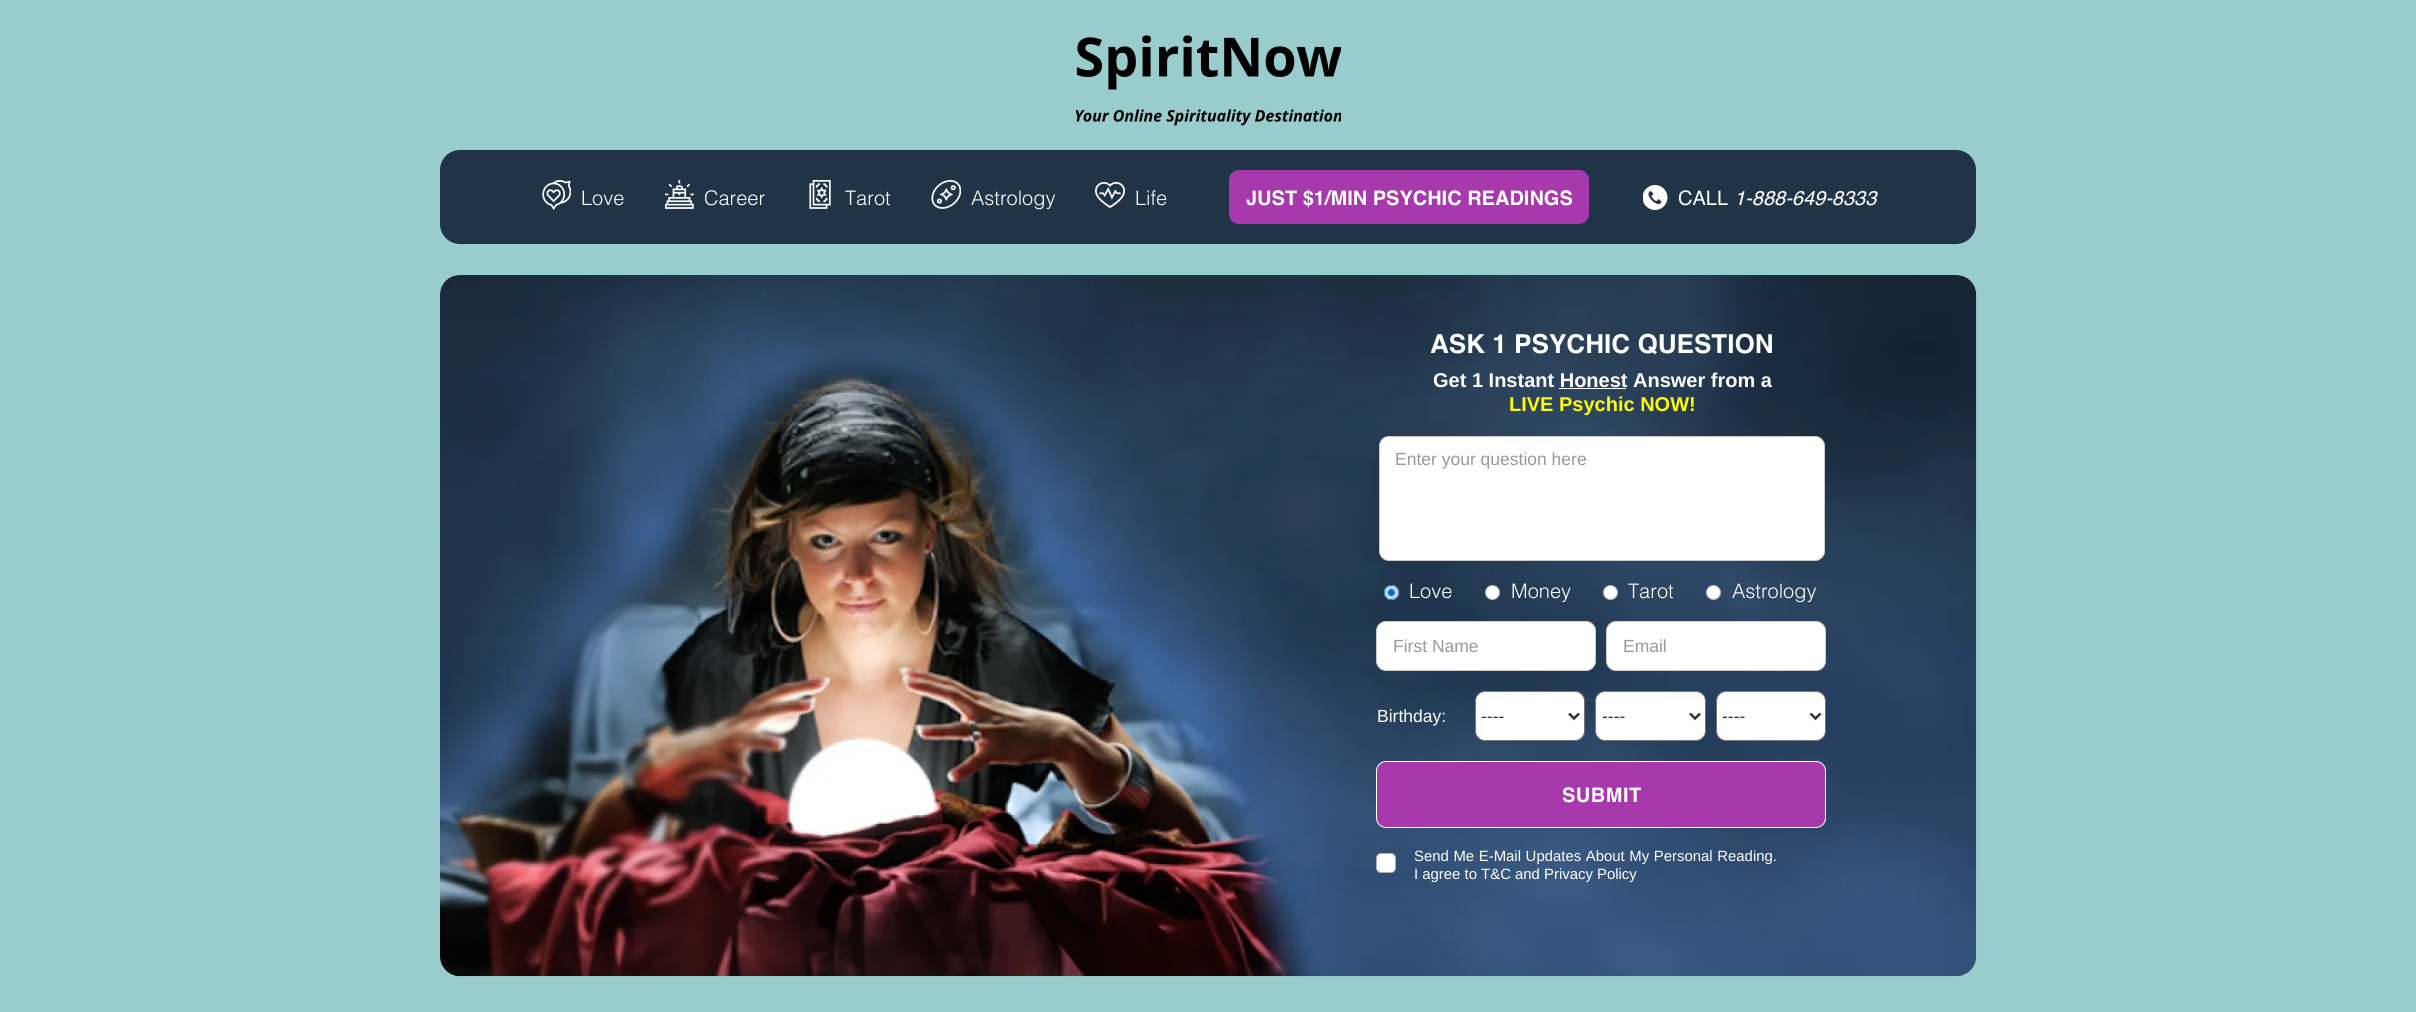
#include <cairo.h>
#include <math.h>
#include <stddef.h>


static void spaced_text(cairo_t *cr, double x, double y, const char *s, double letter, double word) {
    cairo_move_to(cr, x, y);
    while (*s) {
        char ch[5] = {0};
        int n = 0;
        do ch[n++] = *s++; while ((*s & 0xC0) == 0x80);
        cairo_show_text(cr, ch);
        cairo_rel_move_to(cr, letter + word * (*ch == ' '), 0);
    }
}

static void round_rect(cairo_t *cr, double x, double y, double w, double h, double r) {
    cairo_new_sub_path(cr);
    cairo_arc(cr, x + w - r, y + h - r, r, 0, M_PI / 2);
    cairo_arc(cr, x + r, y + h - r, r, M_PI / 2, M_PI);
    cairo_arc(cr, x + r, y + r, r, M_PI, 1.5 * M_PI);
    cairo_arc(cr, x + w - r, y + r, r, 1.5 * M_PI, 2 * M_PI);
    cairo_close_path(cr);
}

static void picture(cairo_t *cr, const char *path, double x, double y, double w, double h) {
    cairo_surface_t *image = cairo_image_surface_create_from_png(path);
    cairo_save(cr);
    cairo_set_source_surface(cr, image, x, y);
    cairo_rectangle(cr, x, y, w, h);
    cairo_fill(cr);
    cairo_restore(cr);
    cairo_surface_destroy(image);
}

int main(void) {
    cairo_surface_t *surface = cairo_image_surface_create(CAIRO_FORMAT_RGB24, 2416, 1012);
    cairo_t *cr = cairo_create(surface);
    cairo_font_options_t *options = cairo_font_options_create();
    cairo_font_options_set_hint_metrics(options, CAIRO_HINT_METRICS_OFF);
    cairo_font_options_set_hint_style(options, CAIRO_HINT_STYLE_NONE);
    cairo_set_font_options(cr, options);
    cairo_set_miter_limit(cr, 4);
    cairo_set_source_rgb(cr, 0.6, 0.8, 0.8);
    cairo_paint(cr);
    picture(cr, "img1.png", 1076, 35, 265, 91);
    cairo_set_source_rgb(cr, 0.129, 0.2, 0.278);
    round_rect(cr, 440, 150, 1536, 94, 20);
    cairo_fill(cr);
    picture(cr, "img2.png", 542, 180, 29, 30);
    cairo_select_font_face(cr, "Helvetica Light", CAIRO_FONT_SLANT_NORMAL, CAIRO_FONT_WEIGHT_NORMAL);
    cairo_set_font_size(cr, 20);
    cairo_set_source_rgb(cr, 1, 1, 1);
    cairo_move_to(cr, 581, 205);
    cairo_show_text(cr, "Love");
    picture(cr, "img3.png", 665, 180, 29, 29);
    cairo_move_to(cr, 704, 205);
    cairo_show_text(cr, "Career");
    picture(cr, "img4.png", 809, 180, 22, 29);
    cairo_move_to(cr, 845, 205);
    cairo_show_text(cr, "Tarot");
    picture(cr, "img5.png", 931, 180, 30, 29);
    cairo_move_to(cr, 971, 205);
    cairo_show_text(cr, "Astrology");
    picture(cr, "img6.png", 1095, 182, 30, 26);
    cairo_move_to(cr, 1135, 205);
    cairo_show_text(cr, "Life");
    cairo_set_source_rgb(cr, 0.655, 0.224, 0.678);
    round_rect(cr, 1229, 170, 360, 54, 10);
    cairo_fill(cr);
    cairo_select_font_face(cr, "Helvetica", CAIRO_FONT_SLANT_NORMAL, CAIRO_FONT_WEIGHT_BOLD);
    cairo_set_source_rgb(cr, 1, 1, 1);
    cairo_move_to(cr, 1246, 205);
    cairo_show_text(cr, "JUST $1/MIN PSYCHIC READINGS");
    picture(cr, "img7.png", 1643, 185, 25, 25);
    cairo_select_font_face(cr, "Helvetica", CAIRO_FONT_SLANT_NORMAL, CAIRO_FONT_WEIGHT_NORMAL);
    cairo_move_to(cr, 1678, 205);
    cairo_show_text(cr, "CALL");
    cairo_select_font_face(cr, "Helvetica", CAIRO_FONT_SLANT_ITALIC, CAIRO_FONT_WEIGHT_NORMAL);
    cairo_move_to(cr, 1734, 205);
    cairo_show_text(cr, "1-888-649-8333");
    picture(cr, "img8.png", 440, 275, 1537, 702);
    cairo_select_font_face(cr, "Helvetica", CAIRO_FONT_SLANT_NORMAL, CAIRO_FONT_WEIGHT_BOLD);
    cairo_set_font_size(cr, 26.1);
    cairo_move_to(cr, 1430, 353);
    cairo_show_text(cr, "ASK 1 PSYCHIC QUESTION");
    cairo_select_font_face(cr, "Liberation Sans", CAIRO_FONT_SLANT_NORMAL, CAIRO_FONT_WEIGHT_BOLD);
    cairo_set_font_size(cr, 20);
    cairo_move_to(cr, 1433, 387);
    cairo_show_text(cr, "Get 1 Instant Honest Answer from a");
    cairo_rectangle(cr, 1559, 388, 67, 1);
    cairo_fill(cr);
    cairo_set_source_rgb(cr, 0.988, 0.996, 0);
    cairo_move_to(cr, 1509, 411);
    cairo_show_text(cr, "LIVE Psychic NOW!");
    cairo_set_source_rgb(cr, 1, 1, 1);
    round_rect(cr, 1379.5, 436.5, 445, 124, 9.5);
    cairo_fill_preserve(cr);
    cairo_set_source_rgb(cr, 0.8, 0.8, 0.8);
    cairo_set_line_width(cr, 1);
    cairo_stroke(cr);
    cairo_select_font_face(cr, "Liberation Sans", CAIRO_FONT_SLANT_NORMAL, CAIRO_FONT_WEIGHT_NORMAL);
    cairo_set_font_size(cr, 17.5);
    cairo_set_source_rgb(cr, 0.6, 0.6, 0.6);
    cairo_move_to(cr, 1395, 465);
    cairo_show_text(cr, "Enter your question here");
    cairo_set_source_rgb(cr, 1, 1, 1);
    cairo_new_path(cr);
    cairo_arc(cr, 1391.5, 592.5, 7.5, 0, 2 * M_PI);
    cairo_fill(cr);
    picture(cr, "img9.png", 1383, 585, 16, 15);
    cairo_select_font_face(cr, "Helvetica Light", CAIRO_FONT_SLANT_NORMAL, CAIRO_FONT_WEIGHT_NORMAL);
    cairo_set_font_size(cr, 20);
    cairo_move_to(cr, 1409, 598);
    cairo_show_text(cr, "Love");
    cairo_new_path(cr);
    cairo_arc(cr, 1492.5, 592.5, 7, 0, 2 * M_PI);
    cairo_fill_preserve(cr);
    cairo_set_source_rgb(cr, 0.678, 0.69, 0.714);
    cairo_stroke(cr);
    cairo_set_source_rgb(cr, 1, 1, 1);
    cairo_move_to(cr, 1511, 598);
    cairo_show_text(cr, "Money");
    cairo_new_path(cr);
    cairo_arc(cr, 1610.5, 592.5, 7, 0, 2 * M_PI);
    cairo_fill_preserve(cr);
    cairo_set_source_rgb(cr, 0.678, 0.69, 0.714);
    cairo_stroke(cr);
    cairo_set_source_rgb(cr, 1, 1, 1);
    cairo_move_to(cr, 1628, 598);
    cairo_show_text(cr, "Tarot");
    cairo_new_path(cr);
    cairo_arc(cr, 1713.5, 592.5, 7, 0, 2 * M_PI);
    cairo_fill_preserve(cr);
    cairo_set_source_rgb(cr, 0.678, 0.69, 0.714);
    cairo_stroke(cr);
    cairo_set_source_rgb(cr, 1, 1, 1);
    cairo_move_to(cr, 1732, 598);
    cairo_show_text(cr, "Astrology");
    round_rect(cr, 1376.5, 621.5, 219, 49, 9.5);
    cairo_fill_preserve(cr);
    cairo_set_source_rgb(cr, 0.8, 0.8, 0.8);
    cairo_stroke(cr);
    cairo_select_font_face(cr, "Liberation Sans", CAIRO_FONT_SLANT_NORMAL, CAIRO_FONT_WEIGHT_NORMAL);
    cairo_set_font_size(cr, 17.5);
    cairo_set_source_rgb(cr, 0.6, 0.6, 0.6);
    cairo_move_to(cr, 1393, 652);
    cairo_show_text(cr, "First Name");
    cairo_set_source_rgb(cr, 1, 1, 1);
    round_rect(cr, 1606.5, 621.5, 219, 49, 9.5);
    cairo_fill_preserve(cr);
    cairo_set_source_rgb(cr, 0.8, 0.8, 0.8);
    cairo_stroke(cr);
    cairo_set_source_rgb(cr, 0.6, 0.6, 0.6);
    cairo_move_to(cr, 1623, 652);
    cairo_show_text(cr, "Email");
    cairo_set_source_rgb(cr, 1, 1, 1);
    cairo_move_to(cr, 1377, 722);
    cairo_show_text(cr, "Birthday:");
    round_rect(cr, 1475.5, 691.5, 109, 49, 9.5);
    cairo_fill_preserve(cr);
    cairo_set_source_rgb(cr, 0.463, 0.463, 0.463);
    cairo_stroke(cr);
    cairo_new_path(cr);
    cairo_move_to(cr, 1569, 713.5);
    cairo_line_to(cr, 1574, 718.5);
    cairo_line_to(cr, 1579, 713.5);
    cairo_set_source_rgb(cr, 0.2, 0.2, 0.2);
    cairo_set_line_width(cr, 2.5);
    cairo_stroke(cr);
    cairo_move_to(cr, 1481, 722);
    cairo_show_text(cr, "----");
    cairo_set_source_rgb(cr, 1, 1, 1);
    round_rect(cr, 1595.5, 691.5, 110, 49, 9.5);
    cairo_fill_preserve(cr);
    cairo_set_source_rgb(cr, 0.463, 0.463, 0.463);
    cairo_set_line_width(cr, 1);
    cairo_stroke(cr);
    cairo_new_path(cr);
    cairo_move_to(cr, 1690, 713.5);
    cairo_line_to(cr, 1695, 718.5);
    cairo_line_to(cr, 1700, 713.5);
    cairo_set_source_rgb(cr, 0.2, 0.2, 0.2);
    cairo_set_line_width(cr, 2.5);
    cairo_stroke(cr);
    cairo_move_to(cr, 1602, 722);
    cairo_show_text(cr, "----");
    cairo_set_source_rgb(cr, 1, 1, 1);
    round_rect(cr, 1716.5, 691.5, 109, 49, 9.5);
    cairo_fill_preserve(cr);
    cairo_set_source_rgb(cr, 0.463, 0.463, 0.463);
    cairo_set_line_width(cr, 1);
    cairo_stroke(cr);
    cairo_new_path(cr);
    cairo_move_to(cr, 1810.5, 713.5);
    cairo_line_to(cr, 1815.5, 718.5);
    cairo_line_to(cr, 1820.5, 713.5);
    cairo_set_source_rgb(cr, 0.2, 0.2, 0.2);
    cairo_set_line_width(cr, 2.5);
    cairo_stroke(cr);
    cairo_move_to(cr, 1722, 722);
    cairo_show_text(cr, "----");
    cairo_set_source_rgb(cr, 0.655, 0.224, 0.678);
    round_rect(cr, 1376.5, 761.5, 449, 66, 9.5);
    cairo_fill_preserve(cr);
    cairo_set_source_rgb(cr, 1, 1, 1);
    cairo_set_line_width(cr, 1);
    cairo_stroke(cr);
    cairo_select_font_face(cr, "Helvetica", CAIRO_FONT_SLANT_NORMAL, CAIRO_FONT_WEIGHT_BOLD);
    cairo_set_font_size(cr, 20);
    spaced_text(cr, 1562, 802, "SUBMIT", 0.5, 0);
    round_rect(cr, 1376.5, 853.5, 19, 19, 4.5);
    cairo_fill_preserve(cr);
    cairo_set_source_rgb(cr, 0.678, 0.69, 0.714);
    cairo_stroke(cr);
    cairo_select_font_face(cr, "Liberation Sans", CAIRO_FONT_SLANT_NORMAL, CAIRO_FONT_WEIGHT_NORMAL);
    cairo_set_font_size(cr, 14.9);
    cairo_set_source_rgb(cr, 1, 1, 1);
    spaced_text(cr, 1414, 861, "Send Me E-Mail Updates About My Personal Reading.", 0, 0.5);
    cairo_move_to(cr, 1414, 879);
    cairo_show_text(cr, "I agree to T&C and Privacy Policy");
    cairo_surface_write_to_png(surface, "page.png");
    cairo_font_options_destroy(options);
    cairo_destroy(cr);
    cairo_surface_destroy(surface);
    return 0;
}
